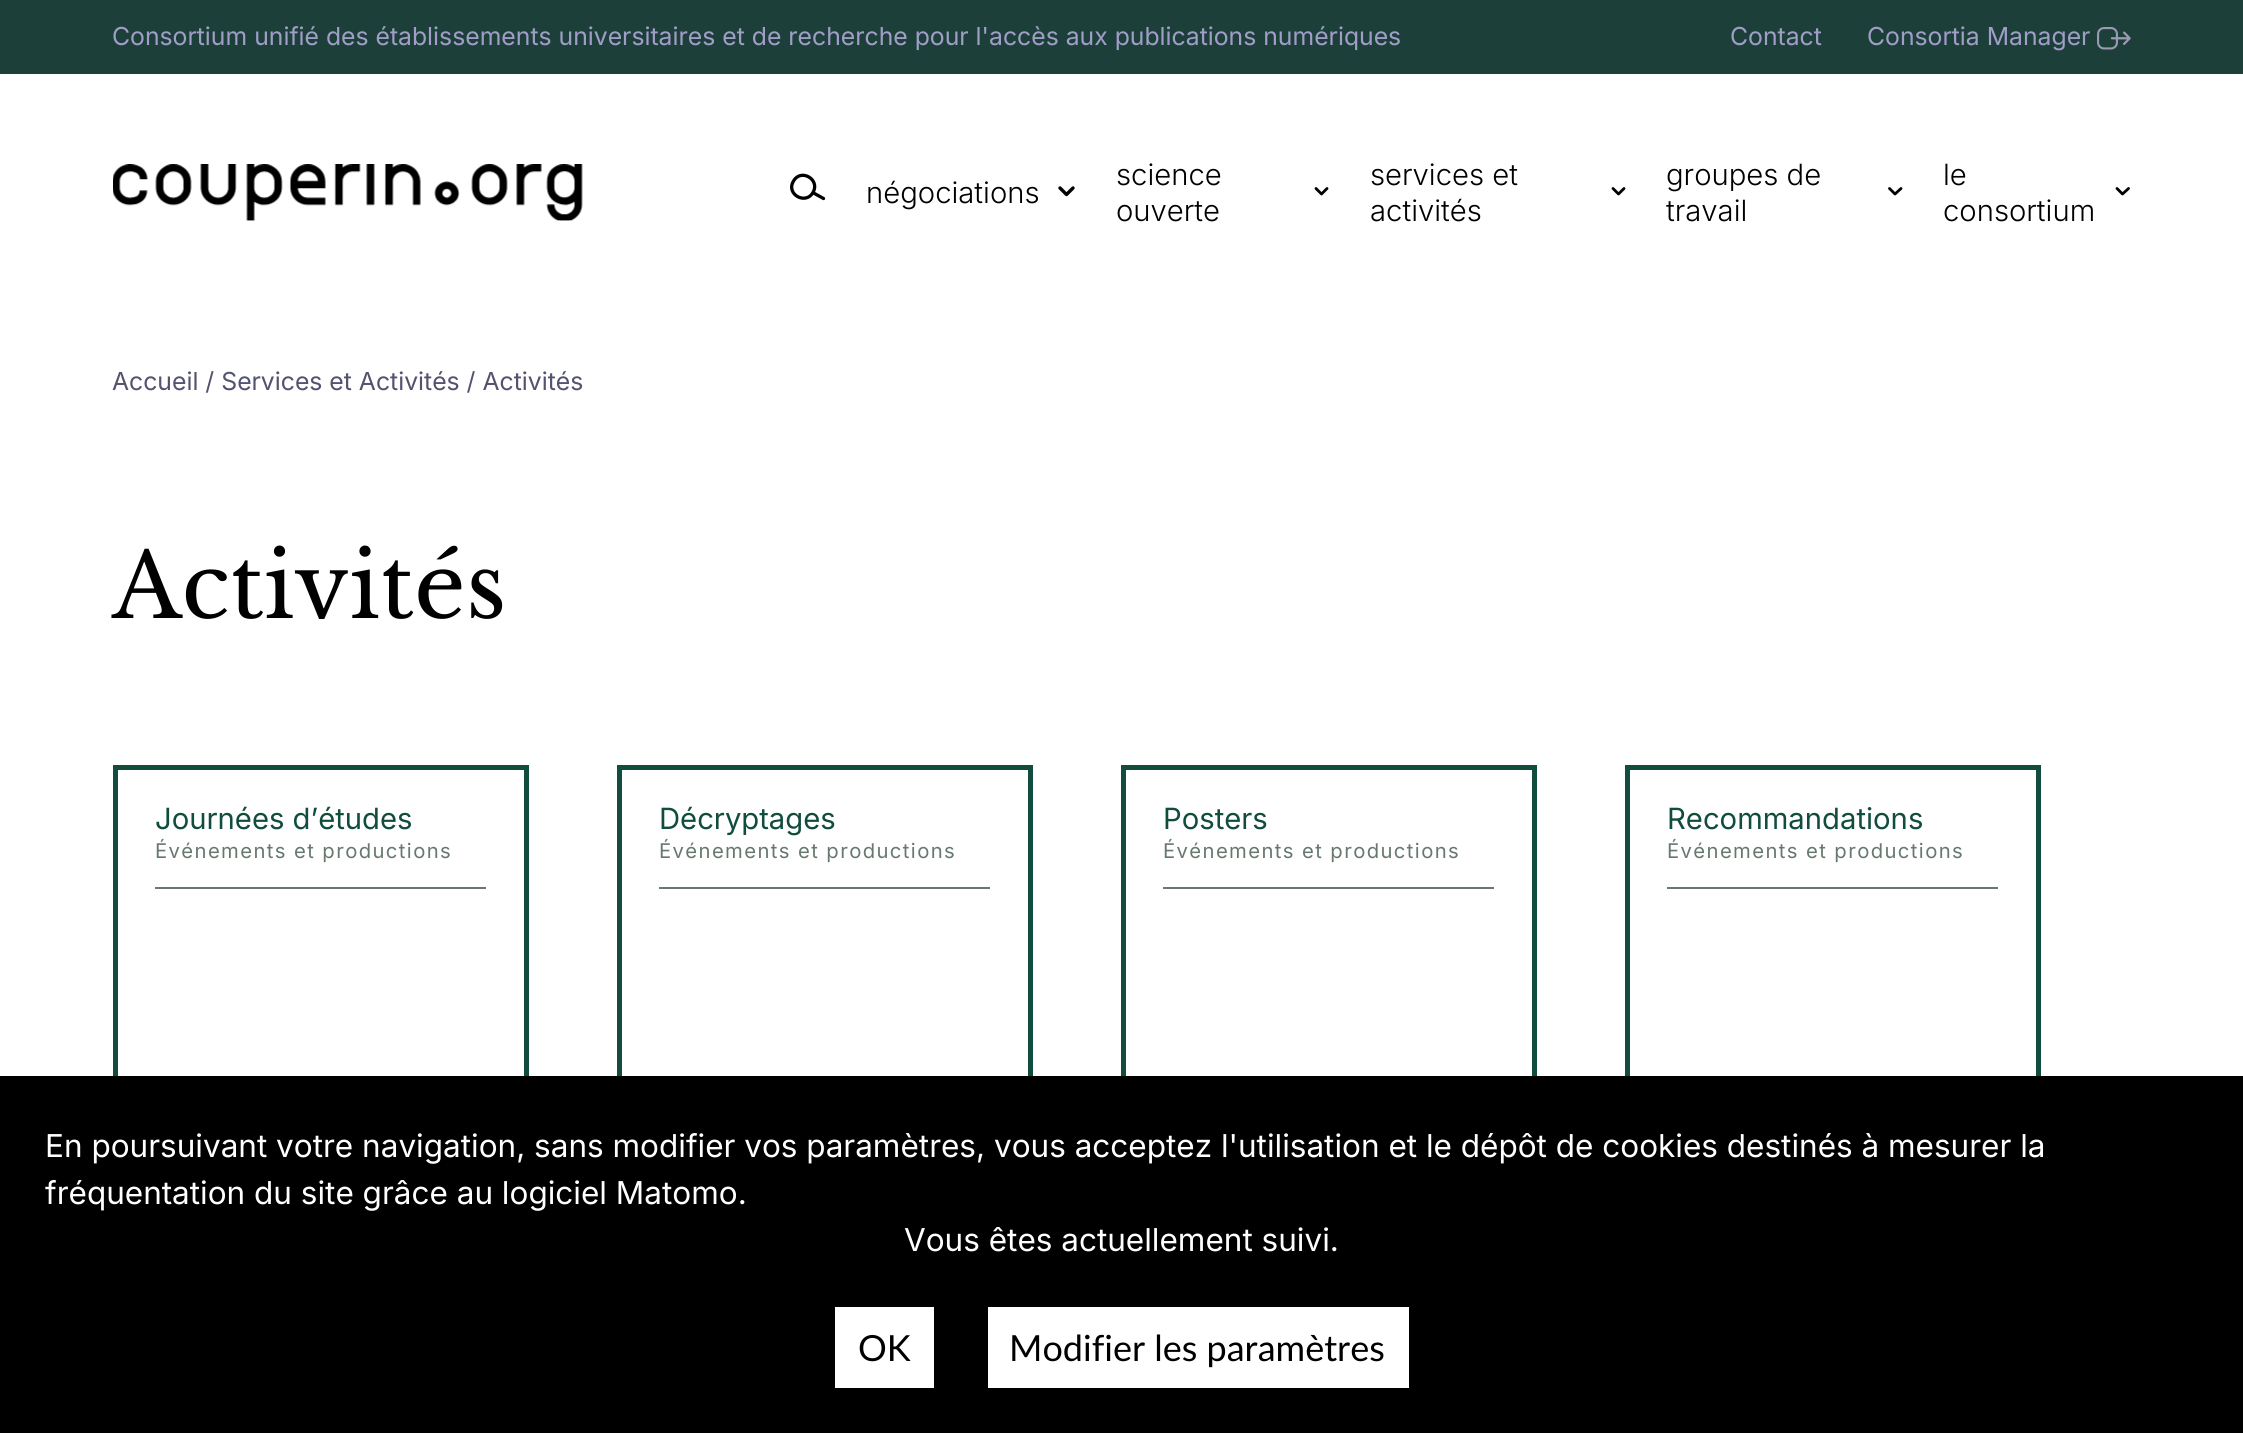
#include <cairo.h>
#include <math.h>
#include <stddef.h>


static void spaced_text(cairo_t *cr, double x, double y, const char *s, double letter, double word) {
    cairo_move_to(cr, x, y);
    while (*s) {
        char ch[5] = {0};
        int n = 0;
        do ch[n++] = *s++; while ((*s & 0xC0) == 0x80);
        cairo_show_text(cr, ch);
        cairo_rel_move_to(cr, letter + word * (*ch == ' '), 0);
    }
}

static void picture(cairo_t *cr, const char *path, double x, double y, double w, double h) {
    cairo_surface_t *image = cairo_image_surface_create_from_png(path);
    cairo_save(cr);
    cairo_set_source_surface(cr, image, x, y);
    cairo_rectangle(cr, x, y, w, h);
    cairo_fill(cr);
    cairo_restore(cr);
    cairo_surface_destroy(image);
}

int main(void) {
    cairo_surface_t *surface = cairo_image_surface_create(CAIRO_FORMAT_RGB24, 2243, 1433);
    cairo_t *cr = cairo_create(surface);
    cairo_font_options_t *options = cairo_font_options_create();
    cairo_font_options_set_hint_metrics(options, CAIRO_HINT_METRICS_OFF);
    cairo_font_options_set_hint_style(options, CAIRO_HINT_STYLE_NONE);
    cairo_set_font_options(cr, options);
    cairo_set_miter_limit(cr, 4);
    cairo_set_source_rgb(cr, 1, 1, 1);
    cairo_paint(cr);
    cairo_set_source_rgb(cr, 0.114, 0.247, 0.227);
    cairo_rectangle(cr, 0, 0, 2243, 74);
    cairo_fill(cr);
    cairo_select_font_face(cr, "Inter", CAIRO_FONT_SLANT_NORMAL, CAIRO_FONT_WEIGHT_NORMAL);
    cairo_set_font_size(cr, 24.75);
    cairo_set_source_rgb(cr, 0.627, 0.62, 0.78);
    cairo_move_to(cr, 112, 45);
    cairo_show_text(cr, "Consortium unifié des établissements universitaires et de recherche pour l'accès aux publications numériques");
    cairo_move_to(cr, 1730, 45);
    cairo_show_text(cr, "Contact");
    cairo_move_to(cr, 1867, 45);
    cairo_show_text(cr, "Consortia Manager");
    picture(cr, "img1.png", 2097, 27, 34, 23);
    picture(cr, "img2.png", 113, 164, 470, 57);
    cairo_new_path(cr);
    cairo_move_to(cr, 793.5, 181);
    cairo_curve_to(cr, 801, 168, 820.5, 179.5, 813, 192.5);
    cairo_curve_to(cr, 805.5, 205.5, 785.5, 194, 793.5, 181);
    cairo_close_path(cr);
    cairo_move_to(cr, 814.5, 193.5);
    cairo_line_to(cr, 823.5, 198.5);
    cairo_set_source_rgb(cr, 0, 0, 0);
    cairo_set_line_width(cr, 3.3);
    cairo_set_line_cap(cr, CAIRO_LINE_CAP_ROUND);
    cairo_stroke(cr);
    cairo_select_font_face(cr, "Inter Light", CAIRO_FONT_SLANT_NORMAL, CAIRO_FONT_WEIGHT_NORMAL);
    cairo_set_font_size(cr, 29.25);
    cairo_move_to(cr, 866, 203);
    cairo_show_text(cr, "négociations");
    cairo_new_path(cr);
    cairo_move_to(cr, 1060, 188);
    cairo_line_to(cr, 1066.5, 194.5);
    cairo_line_to(cr, 1073, 188);
    cairo_set_line_width(cr, 3.4);
    cairo_set_line_join(cr, CAIRO_LINE_JOIN_ROUND);
    cairo_stroke(cr);
    cairo_move_to(cr, 1116, 185);
    cairo_show_text(cr, "science");
    cairo_new_path(cr);
    cairo_move_to(cr, 1316, 188.5);
    cairo_line_to(cr, 1321.5, 194);
    cairo_line_to(cr, 1327, 188.5);
    cairo_set_line_width(cr, 2.8);
    cairo_stroke(cr);
    cairo_move_to(cr, 1116, 221);
    cairo_show_text(cr, "ouverte");
    cairo_move_to(cr, 1370, 185);
    cairo_show_text(cr, "services et");
    cairo_new_path(cr);
    cairo_move_to(cr, 1613, 188.5);
    cairo_line_to(cr, 1618.5, 194);
    cairo_line_to(cr, 1624, 188.5);
    cairo_stroke(cr);
    cairo_move_to(cr, 1370, 221);
    cairo_show_text(cr, "activités");
    cairo_move_to(cr, 1666, 185);
    cairo_show_text(cr, "groupes de");
    cairo_new_path(cr);
    cairo_move_to(cr, 1889.5, 188.5);
    cairo_line_to(cr, 1895, 194);
    cairo_line_to(cr, 1901, 188.5);
    cairo_stroke(cr);
    cairo_move_to(cr, 1666, 221);
    cairo_show_text(cr, "travail");
    cairo_move_to(cr, 1943, 185);
    cairo_show_text(cr, "le");
    cairo_new_path(cr);
    cairo_move_to(cr, 2117, 188.5);
    cairo_line_to(cr, 2122.5, 194);
    cairo_line_to(cr, 2128.5, 188.5);
    cairo_stroke(cr);
    cairo_move_to(cr, 1943, 221);
    cairo_show_text(cr, "consortium");
    cairo_select_font_face(cr, "Inter", CAIRO_FONT_SLANT_NORMAL, CAIRO_FONT_WEIGHT_NORMAL);
    cairo_set_font_size(cr, 24.75);
    cairo_set_source_rgb(cr, 0.325, 0.322, 0.435);
    cairo_move_to(cr, 112, 390);
    cairo_show_text(cr, "Accueil / Services et Activités / Activités");
    cairo_select_font_face(cr, "Libre Baskerville", CAIRO_FONT_SLANT_NORMAL, CAIRO_FONT_WEIGHT_NORMAL);
    cairo_set_font_size(cr, 90);
    cairo_set_source_rgb(cr, 0, 0, 0);
    cairo_move_to(cr, 112, 618);
    cairo_show_text(cr, "Activités");
    cairo_rectangle(cr, 115.5, 767.5, 411, 400);
    cairo_set_source_rgb(cr, 0.067, 0.302, 0.247);
    cairo_set_line_width(cr, 5);
    cairo_set_line_cap(cr, CAIRO_LINE_CAP_BUTT);
    cairo_set_line_join(cr, CAIRO_LINE_JOIN_MITER);
    cairo_stroke(cr);
    cairo_set_source_rgb(cr, 0.404, 0.475, 0.435);
    cairo_rectangle(cr, 155, 887, 331, 2);
    cairo_fill(cr);
    cairo_select_font_face(cr, "Inter", CAIRO_FONT_SLANT_NORMAL, CAIRO_FONT_WEIGHT_NORMAL);
    cairo_set_font_size(cr, 29.25);
    cairo_set_source_rgb(cr, 0.067, 0.302, 0.247);
    cairo_move_to(cr, 155, 829);
    cairo_show_text(cr, "Journées d’études");
    cairo_set_font_size(cr, 20.25);
    cairo_set_source_rgb(cr, 0.404, 0.475, 0.435);
    spaced_text(cr, 155, 858, "Événements et productions", 1.4, 0);
    cairo_rectangle(cr, 619.5, 767.5, 411, 400);
    cairo_set_source_rgb(cr, 0.067, 0.302, 0.247);
    cairo_stroke(cr);
    cairo_set_source_rgb(cr, 0.404, 0.475, 0.435);
    cairo_rectangle(cr, 659, 887, 331, 2);
    cairo_fill(cr);
    cairo_set_font_size(cr, 29.25);
    cairo_set_source_rgb(cr, 0.067, 0.302, 0.247);
    cairo_move_to(cr, 659, 829);
    cairo_show_text(cr, "Décryptages");
    cairo_set_font_size(cr, 20.25);
    cairo_set_source_rgb(cr, 0.404, 0.475, 0.435);
    spaced_text(cr, 659, 858, "Événements et productions", 1.4, 0);
    cairo_rectangle(cr, 1123.5, 767.5, 411, 400);
    cairo_set_source_rgb(cr, 0.067, 0.302, 0.247);
    cairo_stroke(cr);
    cairo_set_source_rgb(cr, 0.404, 0.475, 0.435);
    cairo_rectangle(cr, 1163, 887, 331, 2);
    cairo_fill(cr);
    cairo_set_font_size(cr, 29.25);
    cairo_set_source_rgb(cr, 0.067, 0.302, 0.247);
    cairo_move_to(cr, 1163, 829);
    cairo_show_text(cr, "Posters");
    cairo_set_font_size(cr, 20.25);
    cairo_set_source_rgb(cr, 0.404, 0.475, 0.435);
    spaced_text(cr, 1163, 858, "Événements et productions", 1.4, 0);
    cairo_rectangle(cr, 1627.5, 767.5, 411, 400);
    cairo_set_source_rgb(cr, 0.067, 0.302, 0.247);
    cairo_stroke(cr);
    cairo_set_source_rgb(cr, 0.404, 0.475, 0.435);
    cairo_rectangle(cr, 1667, 887, 331, 2);
    cairo_fill(cr);
    cairo_set_font_size(cr, 29.25);
    cairo_set_source_rgb(cr, 0.067, 0.302, 0.247);
    cairo_move_to(cr, 1667, 829);
    cairo_show_text(cr, "Recommandations");
    cairo_set_font_size(cr, 20.25);
    cairo_set_source_rgb(cr, 0.404, 0.475, 0.435);
    spaced_text(cr, 1667, 858, "Événements et productions", 1.4, 0);
    cairo_set_source_rgb(cr, 0, 0, 0);
    cairo_rectangle(cr, 0, 1076, 2243, 357);
    cairo_fill(cr);
    cairo_set_font_size(cr, 31.5);
    cairo_set_source_rgb(cr, 1, 1, 1);
    cairo_move_to(cr, 45, 1157);
    cairo_show_text(cr, "En poursuivant votre navigation, sans modifier vos paramètres, vous acceptez l'utilisation et le dépôt de cookies destinés à mesurer la");
    cairo_move_to(cr, 45, 1204);
    cairo_show_text(cr, "fréquentation du site grâce au logiciel Matomo.");
    cairo_move_to(cr, 904, 1251);
    cairo_show_text(cr, "Vous êtes actuellement suivi.");
    cairo_rectangle(cr, 835, 1307, 99, 81);
    cairo_fill(cr);
    cairo_select_font_face(cr, "Lato", CAIRO_FONT_SLANT_NORMAL, CAIRO_FONT_WEIGHT_NORMAL);
    cairo_set_font_size(cr, 36);
    cairo_set_source_rgb(cr, 0, 0, 0);
    cairo_move_to(cr, 858, 1361);
    cairo_show_text(cr, "OK");
    cairo_set_source_rgb(cr, 1, 1, 1);
    cairo_rectangle(cr, 988, 1307, 421, 81);
    cairo_fill(cr);
    cairo_set_source_rgb(cr, 0, 0, 0);
    cairo_move_to(cr, 1009, 1361);
    cairo_show_text(cr, "Modifier les paramètres");
    cairo_surface_write_to_png(surface, "page.png");
    cairo_font_options_destroy(options);
    cairo_destroy(cr);
    cairo_surface_destroy(surface);
    return 0;
}
